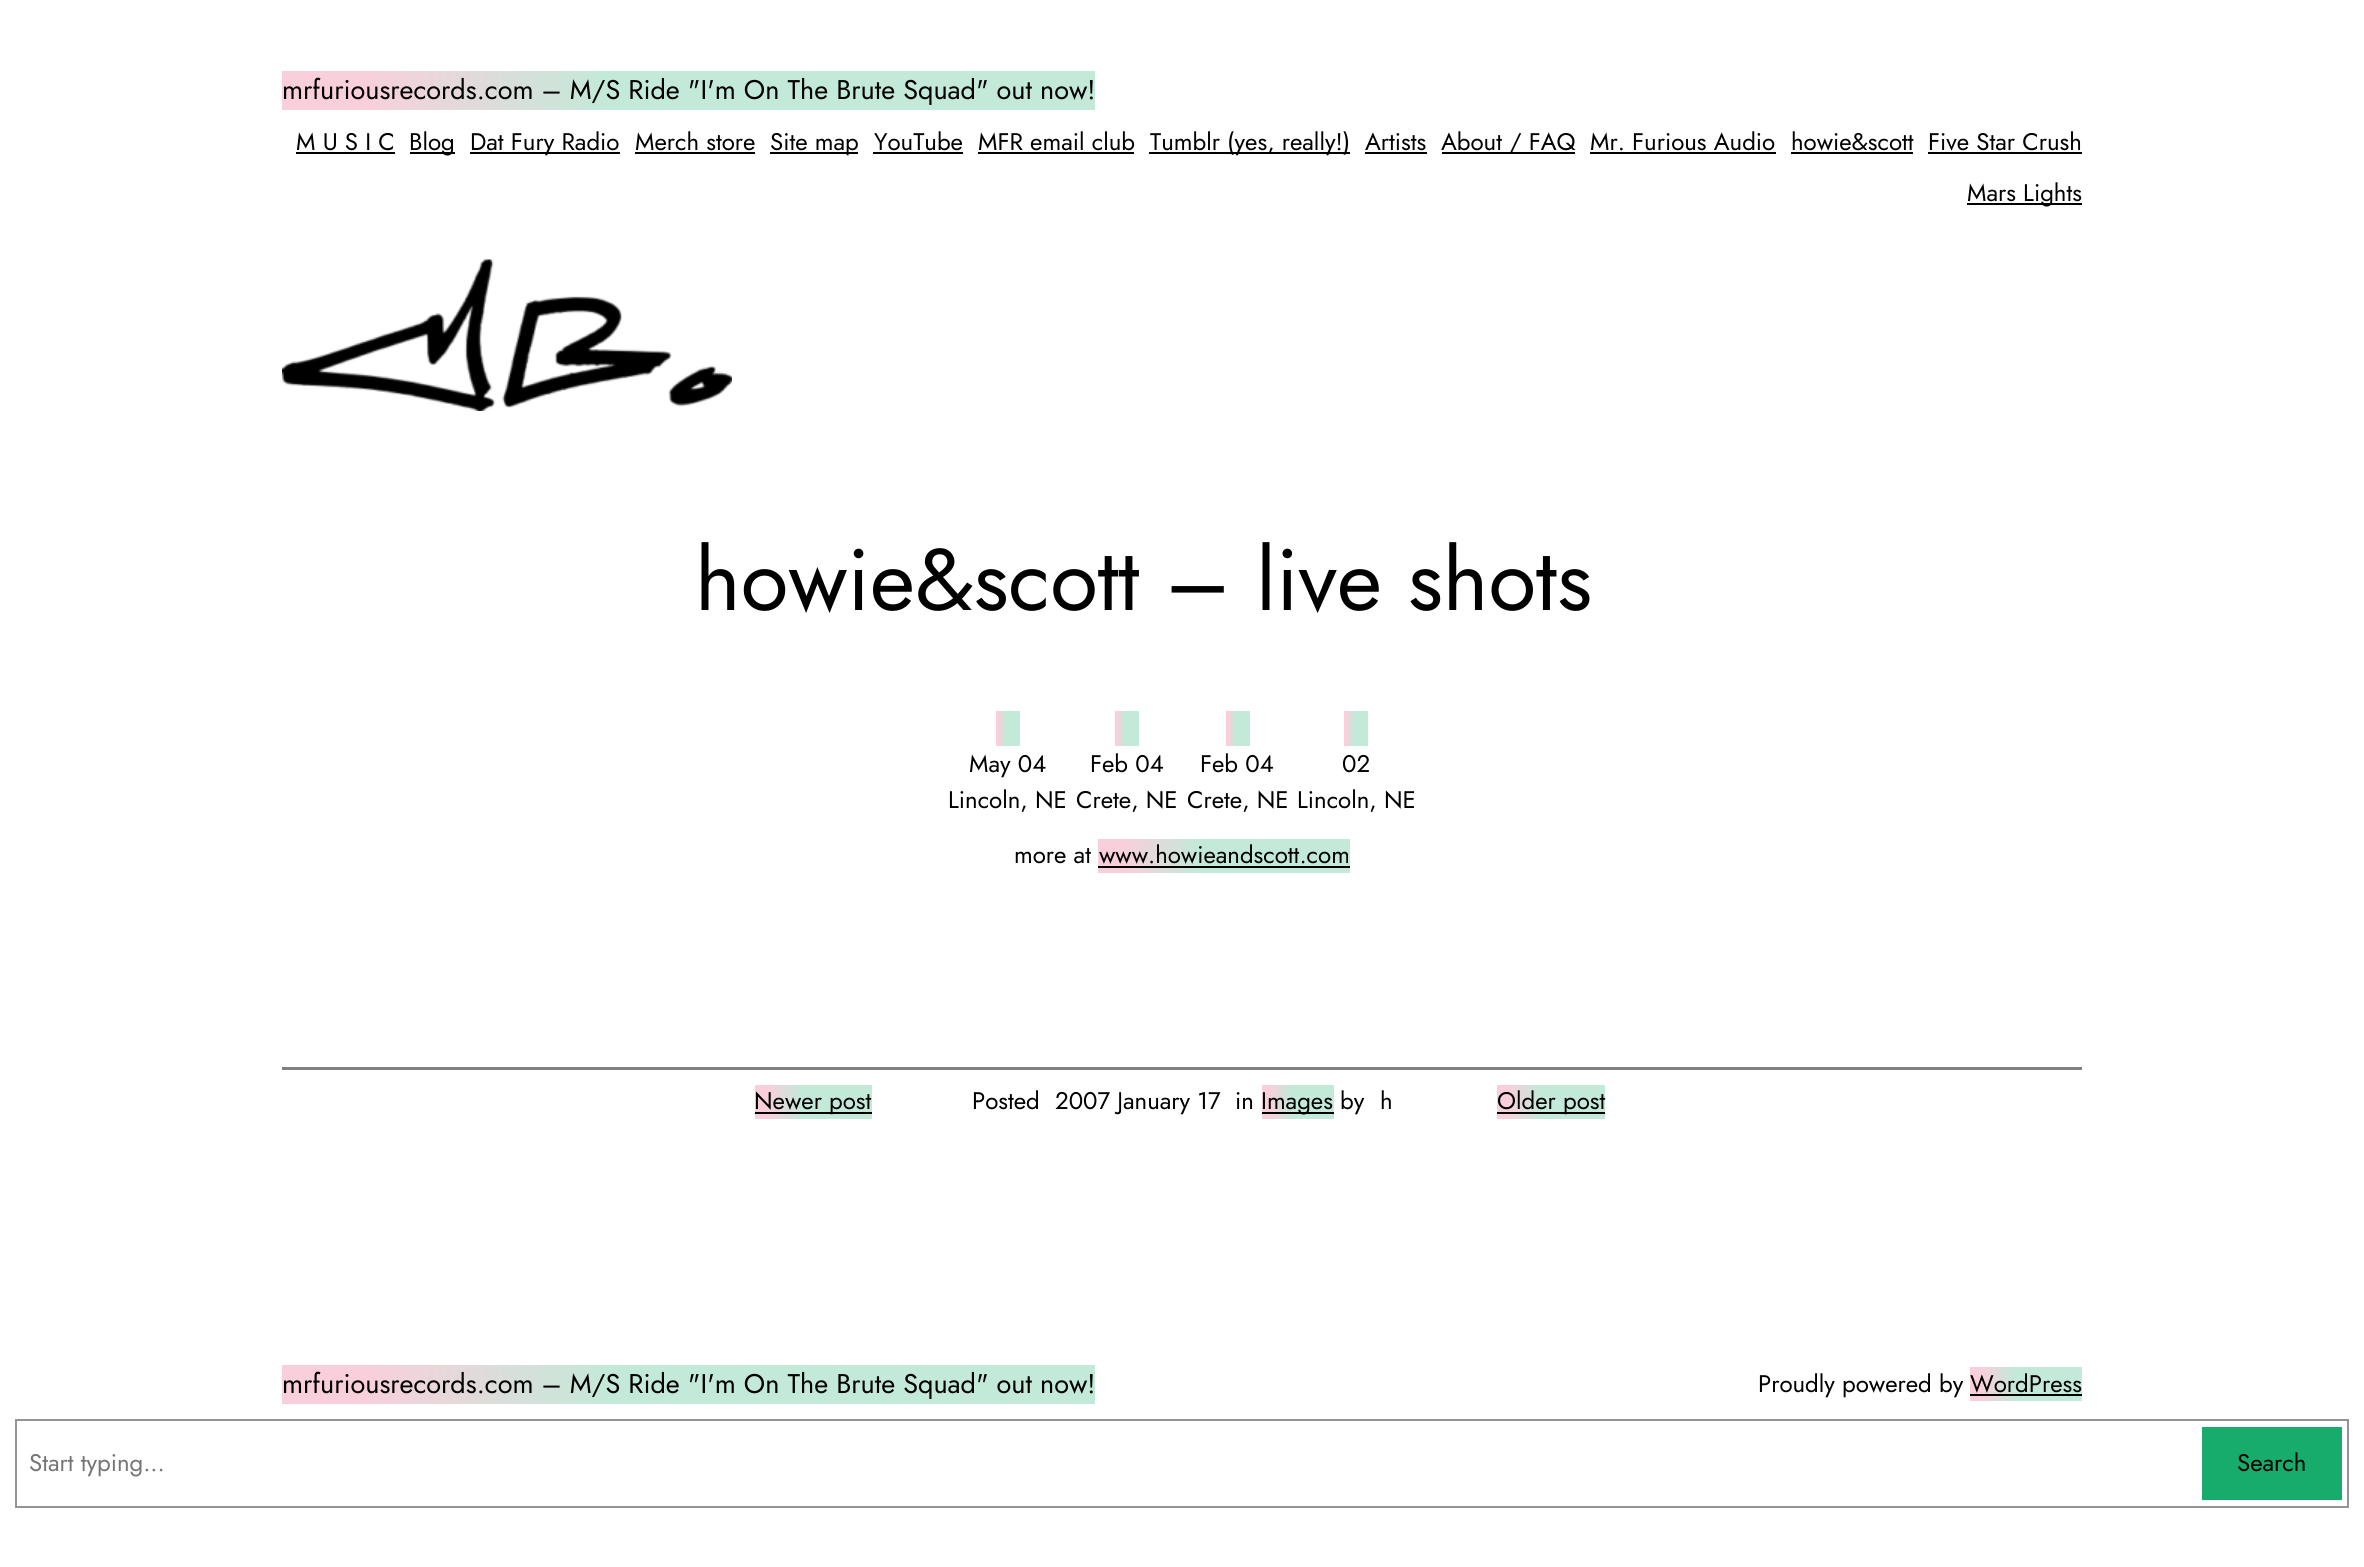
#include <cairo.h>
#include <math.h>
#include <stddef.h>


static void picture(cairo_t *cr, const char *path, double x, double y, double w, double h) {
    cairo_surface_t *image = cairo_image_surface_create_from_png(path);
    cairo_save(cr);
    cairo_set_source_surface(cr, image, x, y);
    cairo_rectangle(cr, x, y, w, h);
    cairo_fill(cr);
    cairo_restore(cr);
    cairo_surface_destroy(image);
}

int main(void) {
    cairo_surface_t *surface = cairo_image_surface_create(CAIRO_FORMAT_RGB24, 2364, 1567);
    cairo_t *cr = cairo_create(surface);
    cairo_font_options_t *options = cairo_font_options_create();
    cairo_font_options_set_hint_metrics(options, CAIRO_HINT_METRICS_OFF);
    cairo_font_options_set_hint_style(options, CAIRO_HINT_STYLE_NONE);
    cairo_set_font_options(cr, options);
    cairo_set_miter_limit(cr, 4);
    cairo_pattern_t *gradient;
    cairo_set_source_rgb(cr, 1, 1, 1);
    cairo_paint(cr);
    gradient = cairo_pattern_create_linear(282, 90, 1095, 90);
    cairo_pattern_add_color_stop_rgba(gradient, 0.1, 0.976, 0.812, 0.859, 1);
    cairo_pattern_add_color_stop_rgba(gradient, 0.4, 0.765, 0.914, 0.851, 1);
    cairo_set_source(cr, gradient);
    cairo_pattern_destroy(gradient);
    cairo_rectangle(cr, 282, 71, 813, 39);
    cairo_fill(cr);
    cairo_select_font_face(cr, "Jost", CAIRO_FONT_SLANT_NORMAL, CAIRO_FONT_WEIGHT_NORMAL);
    cairo_set_font_size(cr, 27);
    cairo_set_source_rgb(cr, 0, 0, 0);
    cairo_move_to(cr, 282, 99);
    cairo_show_text(cr, "mrfuriousrecords.com – M/S Ride \"I'm On The Brute Squad\" out now!");
    cairo_set_font_size(cr, 24);
    cairo_move_to(cr, 296, 150);
    cairo_show_text(cr, "M U S I C");
    cairo_rectangle(cr, 296, 152, 99, 2);
    cairo_fill(cr);
    cairo_rectangle(cr, 410, 152, 45, 2);
    cairo_fill(cr);
    cairo_move_to(cr, 409, 150);
    cairo_show_text(cr, "Blog");
    cairo_rectangle(cr, 470, 152, 150, 2);
    cairo_fill(cr);
    cairo_move_to(cr, 470, 150);
    cairo_show_text(cr, "Dat Fury Radio");
    cairo_move_to(cr, 635, 150);
    cairo_show_text(cr, "Merch store");
    cairo_rectangle(cr, 635, 152, 120, 2);
    cairo_fill(cr);
    cairo_rectangle(cr, 770, 152, 88, 2);
    cairo_fill(cr);
    cairo_move_to(cr, 770, 150);
    cairo_show_text(cr, "Site map");
    cairo_move_to(cr, 874, 150);
    cairo_show_text(cr, "YouTube");
    cairo_rectangle(cr, 873, 152, 90, 2);
    cairo_fill(cr);
    cairo_move_to(cr, 978, 150);
    cairo_show_text(cr, "MFR email club");
    cairo_rectangle(cr, 978, 152, 156, 2);
    cairo_fill(cr);
    cairo_rectangle(cr, 1149, 152, 201, 2);
    cairo_fill(cr);
    cairo_move_to(cr, 1150, 150);
    cairo_show_text(cr, "Tumblr (yes, really!)");
    cairo_move_to(cr, 1365, 150);
    cairo_show_text(cr, "Artists");
    cairo_rectangle(cr, 1365, 152, 62, 2);
    cairo_fill(cr);
    cairo_rectangle(cr, 1442, 152, 133, 2);
    cairo_fill(cr);
    cairo_move_to(cr, 1441, 150);
    cairo_show_text(cr, "About / FAQ");
    cairo_move_to(cr, 1590, 150);
    cairo_show_text(cr, "Mr. Furious Audio");
    cairo_rectangle(cr, 1590, 152, 186, 2);
    cairo_fill(cr);
    cairo_move_to(cr, 1791, 150);
    cairo_show_text(cr, "howie&scott");
    cairo_rectangle(cr, 1791, 152, 122, 2);
    cairo_fill(cr);
    cairo_move_to(cr, 1928, 150);
    cairo_show_text(cr, "Five Star Crush");
    cairo_rectangle(cr, 1928, 152, 154, 2);
    cairo_fill(cr);
    cairo_rectangle(cr, 1967, 203, 115, 2);
    cairo_fill(cr);
    cairo_move_to(cr, 1967, 201);
    cairo_show_text(cr, "Mars Lights");
    picture(cr, "img1.png", 282, 259, 450, 152);
    cairo_set_font_size(cr, 87);
    cairo_move_to(cr, 695, 610);
    cairo_show_text(cr, "howie&scott – live shots");
    gradient = cairo_pattern_create_linear(996, 728, 1020, 728);
    cairo_pattern_add_color_stop_rgba(gradient, 0.1, 0.976, 0.812, 0.859, 1);
    cairo_pattern_add_color_stop_rgba(gradient, 0.4, 0.765, 0.914, 0.851, 1);
    cairo_set_source(cr, gradient);
    cairo_pattern_destroy(gradient);
    cairo_rectangle(cr, 996, 711, 24, 35);
    cairo_fill(cr);
    cairo_set_font_size(cr, 24);
    cairo_set_source_rgb(cr, 0, 0, 0);
    cairo_move_to(cr, 969, 772);
    cairo_show_text(cr, "May 04");
    cairo_move_to(cr, 948, 808);
    cairo_show_text(cr, "Lincoln, NE");
    gradient = cairo_pattern_create_linear(1115, 728, 1139, 728);
    cairo_pattern_add_color_stop_rgba(gradient, 0.1, 0.976, 0.812, 0.859, 1);
    cairo_pattern_add_color_stop_rgba(gradient, 0.4, 0.765, 0.914, 0.851, 1);
    cairo_set_source(cr, gradient);
    cairo_pattern_destroy(gradient);
    cairo_rectangle(cr, 1115, 711, 24, 35);
    cairo_fill(cr);
    cairo_set_source_rgb(cr, 0, 0, 0);
    cairo_move_to(cr, 1090, 772);
    cairo_show_text(cr, "Feb 04");
    cairo_move_to(cr, 1076, 808);
    cairo_show_text(cr, "Crete, NE");
    gradient = cairo_pattern_create_linear(1226, 728, 1250, 728);
    cairo_pattern_add_color_stop_rgba(gradient, 0.1, 0.976, 0.812, 0.859, 1);
    cairo_pattern_add_color_stop_rgba(gradient, 0.4, 0.765, 0.914, 0.851, 1);
    cairo_set_source(cr, gradient);
    cairo_pattern_destroy(gradient);
    cairo_rectangle(cr, 1226, 711, 24, 35);
    cairo_fill(cr);
    cairo_set_source_rgb(cr, 0, 0, 0);
    cairo_move_to(cr, 1200, 772);
    cairo_show_text(cr, "Feb 04");
    cairo_move_to(cr, 1187, 808);
    cairo_show_text(cr, "Crete, NE");
    gradient = cairo_pattern_create_linear(1344, 728, 1368, 728);
    cairo_pattern_add_color_stop_rgba(gradient, 0.1, 0.976, 0.812, 0.859, 1);
    cairo_pattern_add_color_stop_rgba(gradient, 0.4, 0.765, 0.914, 0.851, 1);
    cairo_set_source(cr, gradient);
    cairo_pattern_destroy(gradient);
    cairo_rectangle(cr, 1344, 711, 24, 35);
    cairo_fill(cr);
    cairo_set_source_rgb(cr, 0, 0, 0);
    cairo_move_to(cr, 1342, 772);
    cairo_show_text(cr, "02");
    cairo_move_to(cr, 1297, 808);
    cairo_show_text(cr, "Lincoln, NE");
    cairo_move_to(cr, 1014, 863);
    cairo_show_text(cr, "more at");
    gradient = cairo_pattern_create_linear(1098, 856, 1350, 856);
    cairo_pattern_add_color_stop_rgba(gradient, 0.1, 0.976, 0.812, 0.859, 1);
    cairo_pattern_add_color_stop_rgba(gradient, 0.4, 0.765, 0.914, 0.851, 1);
    cairo_set_source(cr, gradient);
    cairo_pattern_destroy(gradient);
    cairo_rectangle(cr, 1098, 839, 252, 34);
    cairo_fill(cr);
    cairo_set_source_rgb(cr, 0, 0, 0);
    cairo_move_to(cr, 1099, 863);
    cairo_show_text(cr, "www.howieandscott.com");
    cairo_rectangle(cr, 1098, 866, 252, 2);
    cairo_fill(cr);
    cairo_set_source_rgb(cr, 0.502, 0.502, 0.502);
    cairo_rectangle(cr, 282, 1067, 1800, 3);
    cairo_fill(cr);
    gradient = cairo_pattern_create_linear(755, 1102, 872, 1102);
    cairo_pattern_add_color_stop_rgba(gradient, 0.1, 0.976, 0.812, 0.859, 1);
    cairo_pattern_add_color_stop_rgba(gradient, 0.4, 0.765, 0.914, 0.851, 1);
    cairo_set_source(cr, gradient);
    cairo_pattern_destroy(gradient);
    cairo_rectangle(cr, 755, 1085, 117, 34);
    cairo_fill(cr);
    cairo_set_source_rgb(cr, 0, 0, 0);
    cairo_rectangle(cr, 755, 1112, 117, 2);
    cairo_fill(cr);
    cairo_move_to(cr, 754, 1109);
    cairo_show_text(cr, "Newer post");
    cairo_move_to(cr, 972, 1109);
    cairo_show_text(cr, "Posted");
    cairo_move_to(cr, 1055, 1109);
    cairo_show_text(cr, "2007 January 17");
    cairo_move_to(cr, 1235, 1109);
    cairo_show_text(cr, "in");
    gradient = cairo_pattern_create_linear(1262, 1102, 1334, 1102);
    cairo_pattern_add_color_stop_rgba(gradient, 0.1, 0.976, 0.812, 0.859, 1);
    cairo_pattern_add_color_stop_rgba(gradient, 0.4, 0.765, 0.914, 0.851, 1);
    cairo_set_source(cr, gradient);
    cairo_pattern_destroy(gradient);
    cairo_rectangle(cr, 1262, 1085, 72, 34);
    cairo_fill(cr);
    cairo_set_source_rgb(cr, 0, 0, 0);
    cairo_rectangle(cr, 1262, 1112, 72, 2);
    cairo_fill(cr);
    cairo_move_to(cr, 1261, 1109);
    cairo_show_text(cr, "Images by");
    cairo_move_to(cr, 1380, 1109);
    cairo_show_text(cr, "h");
    gradient = cairo_pattern_create_linear(1497, 1102, 1605, 1102);
    cairo_pattern_add_color_stop_rgba(gradient, 0.1, 0.976, 0.812, 0.859, 1);
    cairo_pattern_add_color_stop_rgba(gradient, 0.4, 0.765, 0.914, 0.851, 1);
    cairo_set_source(cr, gradient);
    cairo_pattern_destroy(gradient);
    cairo_rectangle(cr, 1497, 1085, 108, 34);
    cairo_fill(cr);
    cairo_set_source_rgb(cr, 0, 0, 0);
    cairo_rectangle(cr, 1497, 1112, 108, 2);
    cairo_fill(cr);
    cairo_move_to(cr, 1497, 1109);
    cairo_show_text(cr, "Older post");
    gradient = cairo_pattern_create_linear(282, 1385, 1095, 1385);
    cairo_pattern_add_color_stop_rgba(gradient, 0.1, 0.976, 0.812, 0.859, 1);
    cairo_pattern_add_color_stop_rgba(gradient, 0.4, 0.765, 0.914, 0.851, 1);
    cairo_set_source(cr, gradient);
    cairo_pattern_destroy(gradient);
    cairo_rectangle(cr, 282, 1365, 813, 39);
    cairo_fill(cr);
    cairo_set_font_size(cr, 27);
    cairo_set_source_rgb(cr, 0, 0, 0);
    cairo_move_to(cr, 282, 1393);
    cairo_show_text(cr, "mrfuriousrecords.com – M/S Ride \"I'm On The Brute Squad\" out now!");
    cairo_set_font_size(cr, 24);
    cairo_move_to(cr, 1758, 1392);
    cairo_show_text(cr, "Proudly powered by");
    gradient = cairo_pattern_create_linear(1970, 1384, 2082, 1384);
    cairo_pattern_add_color_stop_rgba(gradient, 0.1, 0.976, 0.812, 0.859, 1);
    cairo_pattern_add_color_stop_rgba(gradient, 0.4, 0.765, 0.914, 0.851, 1);
    cairo_set_source(cr, gradient);
    cairo_pattern_destroy(gradient);
    cairo_rectangle(cr, 1970, 1367, 112, 34);
    cairo_fill(cr);
    cairo_set_source_rgb(cr, 0, 0, 0);
    cairo_move_to(cr, 1970, 1392);
    cairo_show_text(cr, "WordPress");
    cairo_rectangle(cr, 1970, 1394, 112, 2);
    cairo_fill(cr);
    cairo_rectangle(cr, 16, 1420, 2332, 87);
    cairo_set_source_rgb(cr, 0.58, 0.58, 0.58);
    cairo_stroke(cr);
    cairo_set_source_rgb(cr, 0.459, 0.459, 0.459);
    cairo_move_to(cr, 29, 1471);
    cairo_show_text(cr, "Start typing...");
    cairo_set_source_rgb(cr, 0.09, 0.675, 0.424);
    cairo_rectangle(cr, 2202, 1427, 140, 73);
    cairo_fill(cr);
    cairo_set_source_rgb(cr, 0, 0, 0);
    cairo_move_to(cr, 2237, 1471);
    cairo_show_text(cr, "Search");
    cairo_surface_write_to_png(surface, "page.png");
    cairo_font_options_destroy(options);
    cairo_destroy(cr);
    cairo_surface_destroy(surface);
    return 0;
}
